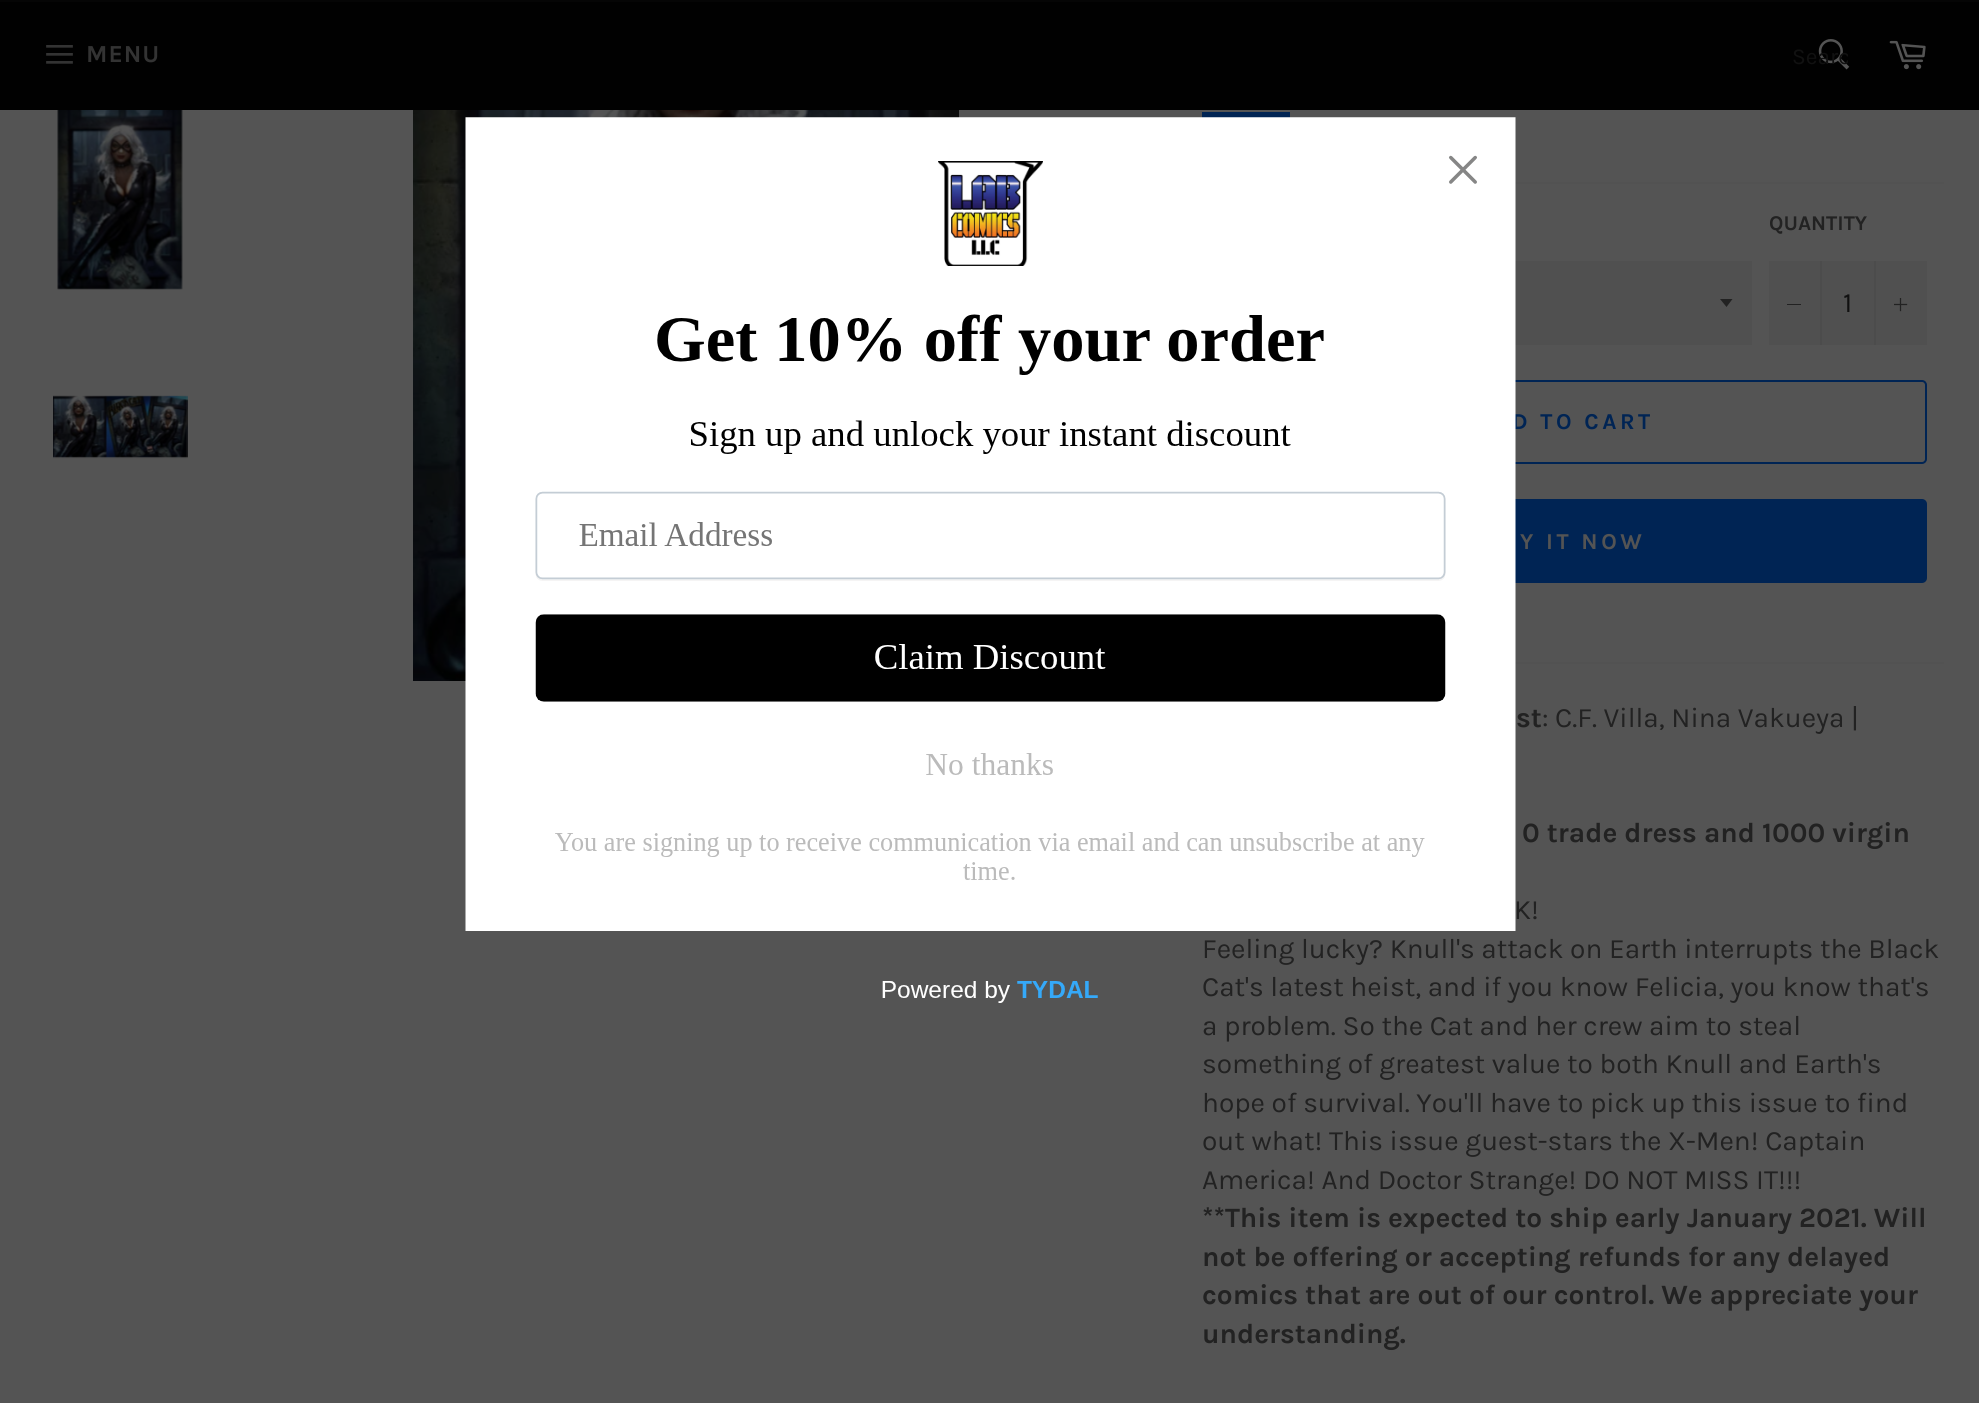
#include <cairo.h>
#include <math.h>
#include <stddef.h>


static void spaced_text(cairo_t *cr, double x, double y, const char *s, double letter, double word) {
    cairo_move_to(cr, x, y);
    while (*s) {
        char ch[5] = {0};
        int n = 0;
        do ch[n++] = *s++; while ((*s & 0xC0) == 0x80);
        cairo_show_text(cr, ch);
        cairo_rel_move_to(cr, letter + word * (*ch == ' '), 0);
    }
}

static void round_rect(cairo_t *cr, double x, double y, double w, double h, double r) {
    cairo_new_sub_path(cr);
    cairo_arc(cr, x + w - r, y + h - r, r, 0, M_PI / 2);
    cairo_arc(cr, x + r, y + h - r, r, M_PI / 2, M_PI);
    cairo_arc(cr, x + r, y + r, r, M_PI, 1.5 * M_PI);
    cairo_arc(cr, x + w - r, y + r, r, 1.5 * M_PI, 2 * M_PI);
    cairo_close_path(cr);
}

static void picture(cairo_t *cr, const char *path, double x, double y, double w, double h) {
    cairo_surface_t *image = cairo_image_surface_create_from_png(path);
    cairo_save(cr);
    cairo_set_source_surface(cr, image, x, y);
    cairo_rectangle(cr, x, y, w, h);
    cairo_fill(cr);
    cairo_restore(cr);
    cairo_surface_destroy(image);
}

int main(void) {
    cairo_surface_t *surface = cairo_image_surface_create(CAIRO_FORMAT_RGB24, 1979, 1403);
    cairo_t *cr = cairo_create(surface);
    cairo_font_options_t *options = cairo_font_options_create();
    cairo_font_options_set_hint_metrics(options, CAIRO_HINT_METRICS_OFF);
    cairo_font_options_set_hint_style(options, CAIRO_HINT_STYLE_NONE);
    cairo_set_font_options(cr, options);
    cairo_set_miter_limit(cr, 4);
    cairo_set_source_rgb(cr, 1, 1, 1);
    cairo_paint(cr);
    cairo_set_source_rgb(cr, 0.012, 0.012, 0.012);
    cairo_rectangle(cr, 0, 2, 1979, 108);
    cairo_fill(cr);
    cairo_set_source_rgb(cr, 0.063, 0.063, 0.063);
    cairo_rectangle(cr, 0, 0, 1979, 2);
    cairo_fill(cr);
    picture(cr, "img2.png", 46, 45, 27, 19);
    cairo_select_font_face(cr, "Karla", CAIRO_FONT_SLANT_NORMAL, CAIRO_FONT_WEIGHT_BOLD);
    cairo_set_font_size(cr, 24.5);
    cairo_set_source_rgb(cr, 0.604, 0.604, 0.604);
    spaced_text(cr, 86, 62, "MENU", 1, 0);
    picture(cr, "img3.png", 1818, 39, 32, 31);
    cairo_save(cr);
    cairo_rectangle(cr, 1792, 44, 56, 26);
    cairo_clip(cr);
    cairo_select_font_face(cr, "Karla", CAIRO_FONT_SLANT_NORMAL, CAIRO_FONT_WEIGHT_NORMAL);
    cairo_set_font_size(cr, 22.75);
    cairo_set_source_rgb(cr, 0.2, 0.2, 0.2);
    cairo_move_to(cr, 1792, 64);
    cairo_show_text(cr, "Searc");
    cairo_restore(cr);
    picture(cr, "img4.png", 1889, 40, 37, 30);
    picture(cr, "img5.png", 57, 110, 126, 180);
    picture(cr, "img6.png", 53, 395, 135, 64);
    picture(cr, "img7.png", 413, 110, 546, 571);
    cairo_set_source_rgb(cr, 0, 0.431, 1);
    cairo_rectangle(cr, 1202, 112, 88, 6);
    cairo_fill(cr);
    cairo_set_source_rgb(cr, 0.969, 0.969, 0.969);
    cairo_rectangle(cr, 1515, 182, 429, 2);
    cairo_fill(cr);
    cairo_set_source_rgb(cr, 0.957, 0.957, 0.957);
    cairo_rectangle(cr, 1515, 261, 237, 84);
    cairo_fill(cr);
    cairo_set_source_rgb(cr, 0.4, 0.4, 0.4);
    cairo_new_path(cr);
    cairo_move_to(cr, 1720, 299);
    cairo_line_to(cr, 1726.5, 307);
    cairo_line_to(cr, 1732.5, 299);
    cairo_close_path(cr);
    cairo_fill(cr);
    cairo_set_font_size(cr, 21);
    cairo_move_to(cr, 1769, 230);
    cairo_show_text(cr, "QUANTITY");
    cairo_set_source_rgb(cr, 0.957, 0.957, 0.957);
    cairo_rectangle(cr, 1769, 261, 158, 84);
    cairo_fill(cr);
    cairo_set_source_rgb(cr, 0.906, 0.906, 0.906);
    cairo_rectangle(cr, 1820, 261, 2, 84);
    cairo_fill(cr);
    cairo_set_source_rgb(cr, 0.4, 0.4, 0.4);
    cairo_rectangle(cr, 1787, 304, 14, 1);
    cairo_fill(cr);
    cairo_select_font_face(cr, "Karla", CAIRO_FONT_SLANT_NORMAL, CAIRO_FONT_WEIGHT_NORMAL);
    cairo_set_font_size(cr, 28);
    cairo_set_source_rgb(cr, 0.2, 0.2, 0.2);
    cairo_move_to(cr, 1843, 312);
    cairo_show_text(cr, "1");
    cairo_set_source_rgb(cr, 0.906, 0.906, 0.906);
    cairo_rectangle(cr, 1874, 261, 2, 84);
    cairo_fill(cr);
    picture(cr, "img8.png", 1894, 298, 14, 14);
    round_rect(cr, 1203, 381, 723, 82, 4);
    cairo_set_source_rgb(cr, 0, 0.431, 1);
    cairo_stroke(cr);
    cairo_select_font_face(cr, "Karla", CAIRO_FONT_SLANT_NORMAL, CAIRO_FONT_WEIGHT_BOLD);
    cairo_set_font_size(cr, 22.75);
    spaced_text(cr, 1512, 429, "D TO CART", 3.5, 0);
    round_rect(cr, 1202, 499, 725, 84, 5);
    cairo_fill(cr);
    cairo_set_source_rgb(cr, 1, 1, 1);
    spaced_text(cr, 1520, 549, "Y IT NOW", 3.5, 0);
    cairo_set_source_rgb(cr, 0.969, 0.969, 0.969);
    cairo_rectangle(cr, 1515, 662, 429, 2);
    cairo_fill(cr);
    cairo_set_font_size(cr, 28);
    cairo_set_source_rgb(cr, 0.4, 0.4, 0.4);
    cairo_move_to(cr, 1516, 727);
    cairo_show_text(cr, "st");
    cairo_select_font_face(cr, "Karla", CAIRO_FONT_SLANT_NORMAL, CAIRO_FONT_WEIGHT_NORMAL);
    cairo_move_to(cr, 1542, 727);
    cairo_show_text(cr, ": C.F. Villa, Nina Vakueya |");
    cairo_select_font_face(cr, "Karla", CAIRO_FONT_SLANT_NORMAL, CAIRO_FONT_WEIGHT_BOLD);
    cairo_move_to(cr, 1522, 842);
    cairo_show_text(cr, "0 trade dress and 1000 virgin");
    cairo_select_font_face(cr, "Karla", CAIRO_FONT_SLANT_NORMAL, CAIRO_FONT_WEIGHT_NORMAL);
    cairo_move_to(cr, 1514, 919);
    cairo_show_text(cr, "K!");
    cairo_move_to(cr, 1202, 958);
    cairo_show_text(cr, "Feeling lucky? Knull's attack on Earth interrupts the Black");
    cairo_move_to(cr, 1202, 996);
    cairo_show_text(cr, "Cat's latest heist, and if you know Felicia, you know that's");
    cairo_move_to(cr, 1202, 1035);
    cairo_show_text(cr, "a problem. So the Cat and her crew aim to steal");
    cairo_move_to(cr, 1202, 1073);
    cairo_show_text(cr, "something of greatest value to both Knull and Earth's");
    cairo_move_to(cr, 1202, 1112);
    cairo_show_text(cr, "hope of survival. You'll have to pick up this issue to find");
    cairo_move_to(cr, 1202, 1150);
    cairo_show_text(cr, "out what! This issue guest-stars the X-Men! Captain");
    cairo_move_to(cr, 1202, 1189);
    cairo_show_text(cr, "America! And Doctor Strange! DO NOT MISS IT!!!");
    cairo_select_font_face(cr, "Karla", CAIRO_FONT_SLANT_NORMAL, CAIRO_FONT_WEIGHT_BOLD);
    cairo_move_to(cr, 1202, 1227);
    cairo_show_text(cr, "**This item is expected to ship early January 2021. Will");
    cairo_move_to(cr, 1202, 1266);
    cairo_show_text(cr, "not be offering or accepting refunds for any delayed");
    cairo_move_to(cr, 1202, 1304);
    cairo_show_text(cr, "comics that are out of our control. We appreciate your");
    cairo_move_to(cr, 1202, 1343);
    cairo_show_text(cr, "understanding.");
    picture(cr, "img1.png", 0, 0, 1979, 1403);
    cairo_surface_write_to_png(surface, "page.png");
    cairo_font_options_destroy(options);
    cairo_destroy(cr);
    cairo_surface_destroy(surface);
    return 0;
}
